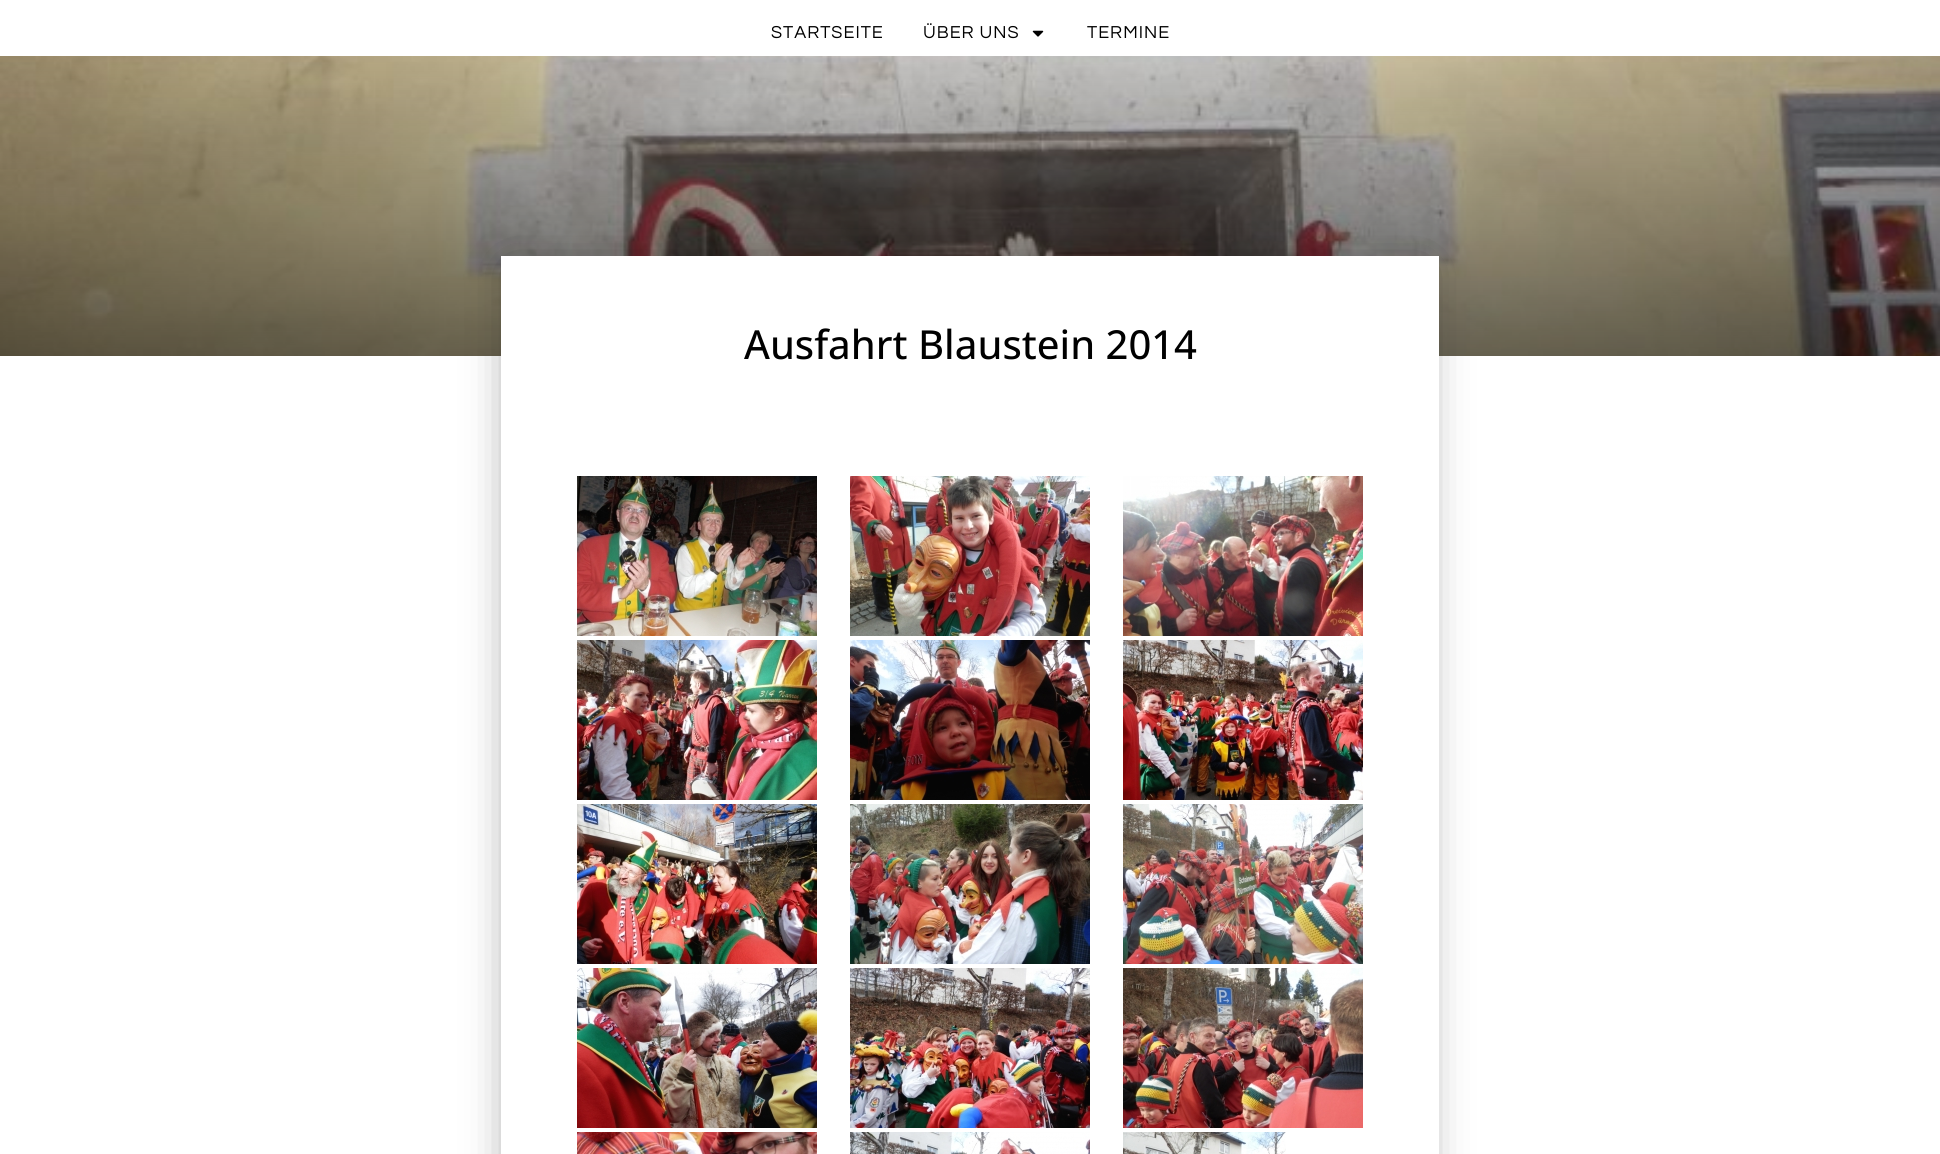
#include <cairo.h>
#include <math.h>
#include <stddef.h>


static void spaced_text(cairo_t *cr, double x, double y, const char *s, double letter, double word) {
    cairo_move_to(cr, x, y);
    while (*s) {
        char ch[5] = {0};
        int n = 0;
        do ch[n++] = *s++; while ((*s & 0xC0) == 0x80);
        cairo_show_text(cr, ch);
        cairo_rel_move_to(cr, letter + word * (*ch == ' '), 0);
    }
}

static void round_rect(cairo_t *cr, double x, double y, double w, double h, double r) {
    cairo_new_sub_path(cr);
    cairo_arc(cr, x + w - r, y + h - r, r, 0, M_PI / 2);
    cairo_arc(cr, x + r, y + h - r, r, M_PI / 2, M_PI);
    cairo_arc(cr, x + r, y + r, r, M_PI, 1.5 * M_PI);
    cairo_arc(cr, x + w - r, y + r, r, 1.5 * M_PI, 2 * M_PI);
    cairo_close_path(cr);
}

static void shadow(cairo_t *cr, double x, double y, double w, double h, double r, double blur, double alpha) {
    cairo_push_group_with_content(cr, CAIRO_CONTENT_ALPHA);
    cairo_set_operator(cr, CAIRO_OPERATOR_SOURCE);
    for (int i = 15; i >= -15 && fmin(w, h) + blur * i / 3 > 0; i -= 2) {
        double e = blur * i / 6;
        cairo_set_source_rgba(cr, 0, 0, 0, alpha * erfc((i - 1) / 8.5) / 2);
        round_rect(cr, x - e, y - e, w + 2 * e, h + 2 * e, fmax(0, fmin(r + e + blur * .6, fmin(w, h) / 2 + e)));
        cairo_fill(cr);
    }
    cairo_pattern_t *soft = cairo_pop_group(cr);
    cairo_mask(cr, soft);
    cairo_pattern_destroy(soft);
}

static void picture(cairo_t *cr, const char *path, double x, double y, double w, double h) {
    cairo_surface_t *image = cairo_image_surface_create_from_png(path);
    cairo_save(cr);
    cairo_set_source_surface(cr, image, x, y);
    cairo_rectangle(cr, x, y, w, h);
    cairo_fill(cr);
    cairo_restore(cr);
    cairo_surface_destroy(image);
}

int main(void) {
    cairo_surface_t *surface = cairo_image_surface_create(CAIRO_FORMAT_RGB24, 1940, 1154);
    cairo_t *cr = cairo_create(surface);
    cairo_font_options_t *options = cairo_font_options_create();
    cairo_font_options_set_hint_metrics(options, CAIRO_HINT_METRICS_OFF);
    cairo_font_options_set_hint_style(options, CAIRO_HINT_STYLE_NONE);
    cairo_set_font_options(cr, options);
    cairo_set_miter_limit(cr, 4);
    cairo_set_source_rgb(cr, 1, 1, 1);
    cairo_paint(cr);
    cairo_select_font_face(cr, "Questrial", CAIRO_FONT_SLANT_NORMAL, CAIRO_FONT_WEIGHT_NORMAL);
    cairo_set_font_size(cr, 18);
    cairo_set_source_rgb(cr, 0, 0, 0);
    spaced_text(cr, 771, 38, "STARTSEITE", 1, 0);
    spaced_text(cr, 923, 38, "ÜBER UNS", 1, 0);
    picture(cr, "img1.png", 1032, 30, 12, 7);
    spaced_text(cr, 1087, 38, "TERMINE", 1, 0);
    picture(cr, "img2.png", 0, 56, 1940, 300);
    cairo_set_source_rgb(cr, 0.145, 0.145, 0.145);
    shadow(cr, 509, 267, 916, 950, 0, 21, 0.45);
    cairo_set_source_rgb(cr, 1, 1, 1);
    cairo_rectangle(cr, 501, 256, 938, 898);
    cairo_fill(cr);
    cairo_select_font_face(cr, "Open Sans Medium", CAIRO_FONT_SLANT_NORMAL, CAIRO_FONT_WEIGHT_NORMAL);
    cairo_set_font_size(cr, 40);
    cairo_set_source_rgb(cr, 0, 0, 0);
    cairo_move_to(cr, 744, 359);
    cairo_show_text(cr, "Ausfahrt Blaustein 2014");
    picture(cr, "img3.png", 577, 476, 240, 160);
    picture(cr, "img4.png", 850, 476, 240, 160);
    picture(cr, "img5.png", 1123, 476, 240, 160);
    picture(cr, "img6.png", 577, 640, 240, 160);
    picture(cr, "img7.png", 850, 640, 240, 160);
    picture(cr, "img8.png", 1123, 640, 240, 160);
    picture(cr, "img9.png", 577, 804, 240, 160);
    picture(cr, "img10.png", 850, 804, 240, 160);
    picture(cr, "img11.png", 1123, 804, 240, 160);
    picture(cr, "img12.png", 577, 968, 240, 160);
    picture(cr, "img13.png", 850, 968, 240, 160);
    picture(cr, "img14.png", 1123, 968, 240, 160);
    picture(cr, "img15.png", 577, 1132, 240, 22);
    picture(cr, "img16.png", 850, 1132, 240, 22);
    picture(cr, "img17.png", 1123, 1132, 163, 22);
    cairo_surface_write_to_png(surface, "page.png");
    cairo_font_options_destroy(options);
    cairo_destroy(cr);
    cairo_surface_destroy(surface);
    return 0;
}
